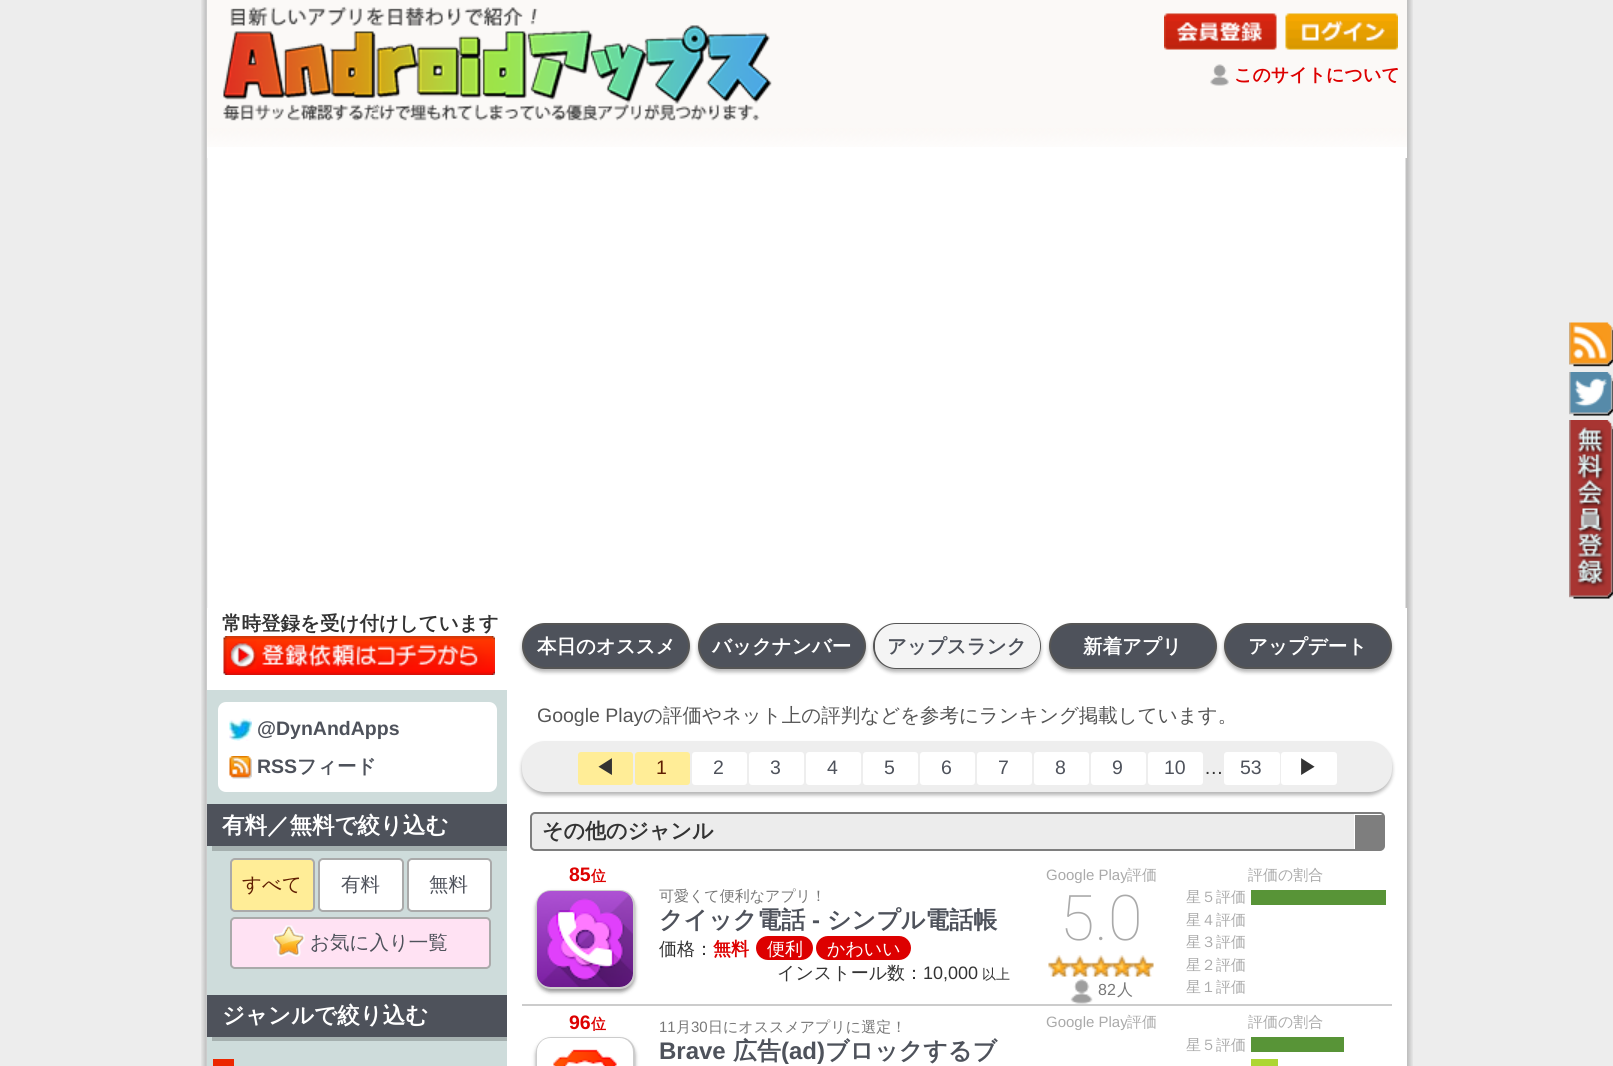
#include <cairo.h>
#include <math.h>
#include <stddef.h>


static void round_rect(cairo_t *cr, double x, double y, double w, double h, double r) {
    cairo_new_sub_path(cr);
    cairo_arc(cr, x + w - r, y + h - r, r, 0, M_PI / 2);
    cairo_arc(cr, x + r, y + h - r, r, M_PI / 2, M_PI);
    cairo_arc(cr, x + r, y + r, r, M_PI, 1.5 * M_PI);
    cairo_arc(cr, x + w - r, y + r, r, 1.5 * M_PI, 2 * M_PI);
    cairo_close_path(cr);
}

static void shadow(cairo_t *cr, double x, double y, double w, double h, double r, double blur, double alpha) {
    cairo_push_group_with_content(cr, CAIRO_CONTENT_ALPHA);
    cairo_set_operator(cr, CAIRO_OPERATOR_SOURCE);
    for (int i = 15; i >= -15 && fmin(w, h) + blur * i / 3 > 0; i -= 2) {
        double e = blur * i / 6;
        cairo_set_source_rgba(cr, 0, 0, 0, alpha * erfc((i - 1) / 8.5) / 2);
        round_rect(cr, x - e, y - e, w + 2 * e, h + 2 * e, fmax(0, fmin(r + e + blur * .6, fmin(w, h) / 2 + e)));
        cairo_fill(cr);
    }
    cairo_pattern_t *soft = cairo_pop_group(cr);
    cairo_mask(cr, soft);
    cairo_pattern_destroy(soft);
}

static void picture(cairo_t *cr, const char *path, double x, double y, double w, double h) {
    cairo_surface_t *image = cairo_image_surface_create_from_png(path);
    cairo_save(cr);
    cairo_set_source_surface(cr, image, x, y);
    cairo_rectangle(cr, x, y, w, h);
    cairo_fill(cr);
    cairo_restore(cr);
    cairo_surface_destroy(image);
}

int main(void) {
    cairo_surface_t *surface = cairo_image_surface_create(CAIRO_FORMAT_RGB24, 1613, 1066);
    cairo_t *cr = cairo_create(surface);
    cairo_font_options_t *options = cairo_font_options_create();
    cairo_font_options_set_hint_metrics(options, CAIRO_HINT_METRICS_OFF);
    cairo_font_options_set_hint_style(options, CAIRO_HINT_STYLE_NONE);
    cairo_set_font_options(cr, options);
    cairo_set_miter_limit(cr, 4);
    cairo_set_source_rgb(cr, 0.929, 0.929, 0.929);
    cairo_paint(cr);
    picture(cr, "img1.png", 201, 0, 1212, 1066);
    cairo_set_source_rgb(cr, 0.984, 0.973, 0.965);
    cairo_rectangle(cr, 207, 0, 1200, 128);
    cairo_fill(cr);
    picture(cr, "img2.png", 223, 6, 549, 115);
    picture(cr, "img3.png", 1164, 13, 113, 37);
    picture(cr, "img4.png", 1285, 13, 113, 37);
    picture(cr, "img5.png", 1210, 64, 19, 22);
    cairo_select_font_face(cr, "WenQuanYi Zen Hei", CAIRO_FONT_SLANT_NORMAL, CAIRO_FONT_WEIGHT_BOLD);
    cairo_set_font_size(cr, 18);
    cairo_set_source_rgb(cr, 0.867, 0, 0);
    cairo_move_to(cr, 1234, 81);
    cairo_show_text(cr, "このサイトについて");
    cairo_set_source_rgb(cr, 1, 1, 1);
    cairo_rectangle(cr, 207, 147, 1200, 11);
    cairo_fill(cr);
    picture(cr, "img6.png", 207, 128, 1200, 19);
    cairo_rectangle(cr, 207, 608, 1, 82);
    cairo_fill(cr);
    cairo_set_font_size(cr, 19.5);
    cairo_set_source_rgb(cr, 0.2, 0.2, 0.2);
    cairo_move_to(cr, 222, 630);
    cairo_show_text(cr, "常時登録を受け付けしています");
    picture(cr, "img7.png", 223, 636, 272, 39);
    cairo_set_source_rgb(cr, 1, 1, 1);
    cairo_rectangle(cr, 1405, 608, 2, 82);
    cairo_fill(cr);
    cairo_set_source_rgb(cr, 0, 0, 0);
    shadow(cr, 522, 626, 168, 46, 23, 2, 0.3);
    cairo_set_source_rgb(cr, 0.306, 0.322, 0.357);
    round_rect(cr, 523, 624, 166, 44, 22);
    cairo_fill_preserve(cr);
    cairo_set_source_rgb(cr, 0.333, 0.333, 0.333);
    cairo_stroke(cr);
    cairo_set_source_rgb(cr, 1, 1, 1);
    cairo_move_to(cr, 537, 653);
    cairo_show_text(cr, "本日のオススメ");
    cairo_set_source_rgb(cr, 0, 0, 0);
    shadow(cr, 698, 626, 168, 46, 23, 2, 0.3);
    cairo_set_source_rgb(cr, 0.306, 0.322, 0.357);
    round_rect(cr, 699, 624, 166, 44, 22);
    cairo_fill_preserve(cr);
    cairo_set_source_rgb(cr, 0.333, 0.333, 0.333);
    cairo_stroke(cr);
    cairo_set_source_rgb(cr, 1, 1, 1);
    cairo_move_to(cr, 712, 653);
    cairo_show_text(cr, "バックナンバー");
    cairo_set_source_rgb(cr, 0, 0, 0);
    shadow(cr, 873, 626, 168, 46, 23, 2, 0.3);
    round_rect(cr, 874, 624, 166, 44, 22);
    cairo_set_source_rgb(cr, 0.333, 0.333, 0.333);
    cairo_stroke(cr);
    cairo_set_source_rgb(cr, 0.957, 0.957, 0.957);
    round_rect(cr, 875, 624, 165, 44, 21);
    cairo_fill(cr);
    cairo_set_source_rgb(cr, 0.306, 0.322, 0.357);
    cairo_move_to(cr, 887, 653);
    cairo_show_text(cr, "アップスランク");
    cairo_set_source_rgb(cr, 0, 0, 0);
    shadow(cr, 1049, 626, 168, 46, 23, 2, 0.3);
    cairo_set_source_rgb(cr, 0.306, 0.322, 0.357);
    round_rect(cr, 1050, 624, 166, 44, 22);
    cairo_fill_preserve(cr);
    cairo_set_source_rgb(cr, 0.333, 0.333, 0.333);
    cairo_stroke(cr);
    cairo_set_source_rgb(cr, 1, 1, 1);
    cairo_move_to(cr, 1083, 653);
    cairo_show_text(cr, "新着アプリ");
    cairo_set_source_rgb(cr, 0, 0, 0);
    shadow(cr, 1224, 626, 168, 46, 23, 2, 0.3);
    cairo_set_source_rgb(cr, 0.306, 0.322, 0.357);
    round_rect(cr, 1225, 624, 166, 44, 22);
    cairo_fill_preserve(cr);
    cairo_set_source_rgb(cr, 0.333, 0.333, 0.333);
    cairo_stroke(cr);
    cairo_set_source_rgb(cr, 1, 1, 1);
    cairo_move_to(cr, 1248, 653);
    cairo_show_text(cr, "アップデート");
    cairo_set_source_rgb(cr, 0.808, 0.863, 0.859);
    cairo_rectangle(cr, 207, 690, 300, 376);
    cairo_fill(cr);
    cairo_set_source_rgb(cr, 1, 1, 1);
    round_rect(cr, 218, 702, 279, 90, 8);
    cairo_fill(cr);
    picture(cr, "img8.png", 229, 718, 23, 23);
    cairo_select_font_face(cr, "Liberation Sans", CAIRO_FONT_SLANT_NORMAL, CAIRO_FONT_WEIGHT_BOLD);
    cairo_set_source_rgb(cr, 0.306, 0.322, 0.357);
    cairo_move_to(cr, 257, 735);
    cairo_show_text(cr, "@DynAndApps");
    picture(cr, "img9.png", 229, 756, 23, 23);
    cairo_move_to(cr, 257, 773);
    cairo_show_text(cr, "RSS");
    cairo_select_font_face(cr, "WenQuanYi Zen Hei", CAIRO_FONT_SLANT_NORMAL, CAIRO_FONT_WEIGHT_BOLD);
    cairo_move_to(cr, 297, 773);
    cairo_show_text(cr, "フィード");
    cairo_set_source_rgb(cr, 0.647, 0.69, 0.686);
    cairo_new_path(cr);
    cairo_move_to(cr, 212, 846);
    cairo_line_to(cr, 212, 851);
    cairo_line_to(cr, 512, 851);
    cairo_line_to(cr, 512, 809);
    cairo_line_to(cr, 507, 809);
    cairo_line_to(cr, 507, 846);
    cairo_close_path(cr);
    cairo_fill(cr);
    cairo_set_source_rgb(cr, 0.306, 0.322, 0.357);
    cairo_rectangle(cr, 207, 804, 300, 42);
    cairo_fill(cr);
    cairo_set_font_size(cr, 22.5);
    cairo_set_source_rgb(cr, 1, 1, 1);
    cairo_move_to(cr, 222, 833);
    cairo_show_text(cr, "有料／無料で絞り込む");
    cairo_set_source_rgb(cr, 1, 0.929, 0.592);
    round_rect(cr, 231, 859, 83, 52, 4);
    cairo_fill_preserve(cr);
    cairo_set_source_rgb(cr, 0.667, 0.667, 0.667);
    cairo_stroke(cr);
    cairo_select_font_face(cr, "WenQuanYi Zen Hei Medium", CAIRO_FONT_SLANT_NORMAL, CAIRO_FONT_WEIGHT_NORMAL);
    cairo_set_font_size(cr, 19.5);
    cairo_set_source_rgb(cr, 0.373, 0.118, 0.004);
    cairo_move_to(cr, 242, 891);
    cairo_show_text(cr, "すべて");
    cairo_set_source_rgb(cr, 1, 1, 1);
    round_rect(cr, 319, 859, 84, 52, 4);
    cairo_fill_preserve(cr);
    cairo_set_source_rgb(cr, 0.667, 0.667, 0.667);
    cairo_stroke(cr);
    cairo_set_source_rgb(cr, 0.306, 0.322, 0.357);
    cairo_move_to(cr, 341, 891);
    cairo_show_text(cr, "有料");
    cairo_set_source_rgb(cr, 1, 1, 1);
    round_rect(cr, 408, 859, 83, 52, 4);
    cairo_fill_preserve(cr);
    cairo_set_source_rgb(cr, 0.667, 0.667, 0.667);
    cairo_stroke(cr);
    cairo_set_source_rgb(cr, 0.306, 0.322, 0.357);
    cairo_move_to(cr, 429, 891);
    cairo_show_text(cr, "無料");
    cairo_set_source_rgb(cr, 1, 0.886, 0.953);
    round_rect(cr, 231, 918, 259, 50, 4);
    cairo_fill_preserve(cr);
    cairo_set_source_rgb(cr, 0.667, 0.667, 0.667);
    cairo_stroke(cr);
    picture(cr, "img10.png", 273, 925, 32, 32);
    cairo_set_source_rgb(cr, 0.306, 0.322, 0.357);
    cairo_move_to(cr, 310, 949);
    cairo_show_text(cr, "お気に入り一覧");
    cairo_set_source_rgb(cr, 0.647, 0.69, 0.686);
    cairo_new_path(cr);
    cairo_move_to(cr, 212, 1036);
    cairo_line_to(cr, 212, 1041);
    cairo_line_to(cr, 512, 1041);
    cairo_line_to(cr, 512, 999);
    cairo_line_to(cr, 507, 999);
    cairo_line_to(cr, 507, 1036);
    cairo_close_path(cr);
    cairo_fill(cr);
    cairo_set_source_rgb(cr, 0.306, 0.322, 0.357);
    cairo_rectangle(cr, 207, 995, 300, 42);
    cairo_fill(cr);
    cairo_select_font_face(cr, "WenQuanYi Zen Hei", CAIRO_FONT_SLANT_NORMAL, CAIRO_FONT_WEIGHT_BOLD);
    cairo_set_font_size(cr, 22.5);
    cairo_set_source_rgb(cr, 1, 1, 1);
    cairo_move_to(cr, 222, 1023);
    cairo_show_text(cr, "ジャンルで絞り込む");
    cairo_set_source_rgb(cr, 0.925, 0.153, 0);
    cairo_new_path(cr);
    cairo_move_to(cr, 213, 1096.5);
    cairo_line_to(cr, 213, 1059);
    cairo_line_to(cr, 234, 1059);
    cairo_line_to(cr, 234, 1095);
    cairo_close_path(cr);
    cairo_fill(cr);
    cairo_set_source_rgb(cr, 1, 1, 1);
    cairo_rectangle(cr, 507, 690, 900, 376);
    cairo_fill(cr);
    cairo_select_font_face(cr, "Liberation Sans", CAIRO_FONT_SLANT_NORMAL, CAIRO_FONT_WEIGHT_NORMAL);
    cairo_set_font_size(cr, 19.5);
    cairo_set_source_rgb(cr, 0.333, 0.333, 0.333);
    cairo_move_to(cr, 537, 722);
    cairo_show_text(cr, "Google Play");
    cairo_select_font_face(cr, "WenQuanYi Zen Hei Medium", CAIRO_FONT_SLANT_NORMAL, CAIRO_FONT_WEIGHT_NORMAL);
    cairo_move_to(cr, 643, 722);
    cairo_show_text(cr, "の評価やネット上の評判などを参考にランキング掲載しています。");
    cairo_set_source_rgb(cr, 0, 0, 0);
    shadow(cr, 522, 744, 870, 51, 23, 2, 0.3);
    cairo_set_source_rgb(cr, 0.933, 0.933, 0.933);
    round_rect(cr, 522, 741, 870, 51, 23);
    cairo_fill(cr);
    cairo_set_source_rgb(cr, 1, 0.929, 0.592);
    round_rect(cr, 578, 752, 55, 33, 3);
    cairo_fill(cr);
    cairo_select_font_face(cr, "WenQuanYi Zen Hei", CAIRO_FONT_SLANT_NORMAL, CAIRO_FONT_WEIGHT_BOLD);
    cairo_set_source_rgb(cr, 0.2, 0.2, 0.2);
    cairo_move_to(cr, 595, 774);
    cairo_show_text(cr, "◀");
    cairo_set_source_rgb(cr, 1, 0.929, 0.592);
    round_rect(cr, 635, 752, 55, 33, 3);
    cairo_fill(cr);
    cairo_select_font_face(cr, "Liberation Sans", CAIRO_FONT_SLANT_NORMAL, CAIRO_FONT_WEIGHT_NORMAL);
    cairo_set_source_rgb(cr, 0.373, 0.118, 0.004);
    cairo_move_to(cr, 656, 774);
    cairo_show_text(cr, "1");
    cairo_set_source_rgb(cr, 1, 1, 1);
    round_rect(cr, 692, 752, 55, 33, 3);
    cairo_fill(cr);
    cairo_set_source_rgb(cr, 0.306, 0.322, 0.357);
    cairo_move_to(cr, 713, 774);
    cairo_show_text(cr, "2");
    cairo_set_source_rgb(cr, 1, 1, 1);
    round_rect(cr, 749, 752, 55, 33, 3);
    cairo_fill(cr);
    cairo_set_source_rgb(cr, 0.306, 0.322, 0.357);
    cairo_move_to(cr, 770, 774);
    cairo_show_text(cr, "3");
    cairo_set_source_rgb(cr, 1, 1, 1);
    round_rect(cr, 806, 752, 55, 33, 3);
    cairo_fill(cr);
    cairo_set_source_rgb(cr, 0.306, 0.322, 0.357);
    cairo_move_to(cr, 827, 774);
    cairo_show_text(cr, "4");
    cairo_set_source_rgb(cr, 1, 1, 1);
    round_rect(cr, 863, 752, 55, 33, 3);
    cairo_fill(cr);
    cairo_set_source_rgb(cr, 0.306, 0.322, 0.357);
    cairo_move_to(cr, 884, 774);
    cairo_show_text(cr, "5");
    cairo_set_source_rgb(cr, 1, 1, 1);
    round_rect(cr, 920, 752, 55, 33, 3);
    cairo_fill(cr);
    cairo_set_source_rgb(cr, 0.306, 0.322, 0.357);
    cairo_move_to(cr, 941, 774);
    cairo_show_text(cr, "6");
    cairo_set_source_rgb(cr, 1, 1, 1);
    round_rect(cr, 977, 752, 55, 33, 3);
    cairo_fill(cr);
    cairo_set_source_rgb(cr, 0.306, 0.322, 0.357);
    cairo_move_to(cr, 998, 774);
    cairo_show_text(cr, "7");
    cairo_set_source_rgb(cr, 1, 1, 1);
    round_rect(cr, 1034, 752, 55, 33, 3);
    cairo_fill(cr);
    cairo_set_source_rgb(cr, 0.306, 0.322, 0.357);
    cairo_move_to(cr, 1055, 774);
    cairo_show_text(cr, "8");
    cairo_set_source_rgb(cr, 1, 1, 1);
    round_rect(cr, 1091, 752, 55, 33, 3);
    cairo_fill(cr);
    cairo_set_source_rgb(cr, 0.306, 0.322, 0.357);
    cairo_move_to(cr, 1112, 774);
    cairo_show_text(cr, "9");
    cairo_set_source_rgb(cr, 1, 1, 1);
    round_rect(cr, 1148, 752, 55, 33, 3);
    cairo_fill(cr);
    cairo_set_source_rgb(cr, 0.306, 0.322, 0.357);
    cairo_move_to(cr, 1164, 774);
    cairo_show_text(cr, "10");
    cairo_set_source_rgb(cr, 0.2, 0.2, 0.2);
    cairo_move_to(cr, 1204, 774);
    cairo_show_text(cr, "…");
    cairo_set_source_rgb(cr, 1, 1, 1);
    round_rect(cr, 1224, 752, 56, 33, 3);
    cairo_fill(cr);
    cairo_set_source_rgb(cr, 0.306, 0.322, 0.357);
    cairo_move_to(cr, 1240, 774);
    cairo_show_text(cr, "53");
    cairo_set_source_rgb(cr, 1, 1, 1);
    round_rect(cr, 1281, 752, 56, 33, 3);
    cairo_fill(cr);
    cairo_select_font_face(cr, "WenQuanYi Zen Hei", CAIRO_FONT_SLANT_NORMAL, CAIRO_FONT_WEIGHT_BOLD);
    cairo_set_source_rgb(cr, 0.2, 0.2, 0.2);
    cairo_move_to(cr, 1298, 774);
    cairo_show_text(cr, "▶");
    cairo_set_source_rgb(cr, 0.922, 0.922, 0.922);
    cairo_new_path(cr);
    cairo_move_to(cr, 534, 813);
    cairo_line_to(cr, 1354, 813);
    cairo_line_to(cr, 1354, 849);
    cairo_line_to(cr, 534, 849);
    cairo_curve_to(cr, 532, 849, 531, 848, 531, 846);
    cairo_line_to(cr, 531, 816);
    cairo_curve_to(cr, 531, 814, 532, 813, 534, 813);
    cairo_close_path(cr);
    cairo_fill(cr);
    round_rect(cr, 531, 813, 853, 37, 4);
    cairo_set_source_rgb(cr, 0.494, 0.494, 0.494);
    cairo_stroke(cr);
    cairo_rectangle(cr, 1355, 815, 28, 34);
    cairo_fill(cr);
    cairo_set_font_size(cr, 21);
    cairo_set_source_rgb(cr, 0.2, 0.2, 0.2);
    cairo_move_to(cr, 542, 838);
    cairo_show_text(cr, "その他のジャンル");
    cairo_set_source_rgb(cr, 0.8, 0.8, 0.8);
    cairo_rectangle(cr, 522, 1004, 870, 2);
    cairo_fill(cr);
    cairo_select_font_face(cr, "Liberation Sans", CAIRO_FONT_SLANT_NORMAL, CAIRO_FONT_WEIGHT_BOLD);
    cairo_set_font_size(cr, 19.5);
    cairo_set_source_rgb(cr, 0.867, 0, 0);
    cairo_move_to(cr, 569, 881);
    cairo_show_text(cr, "85");
    cairo_select_font_face(cr, "WenQuanYi Zen Hei", CAIRO_FONT_SLANT_NORMAL, CAIRO_FONT_WEIGHT_BOLD);
    cairo_set_font_size(cr, 15);
    cairo_move_to(cr, 591, 881);
    cairo_show_text(cr, "位");
    cairo_set_source_rgb(cr, 0, 0, 0);
    shadow(cr, 536, 893, 99, 99, 15, 2, 0.4);
    cairo_set_source_rgb(cr, 1, 1, 1);
    round_rect(cr, 537, 891, 97, 97, 14);
    cairo_fill_preserve(cr);
    cairo_set_source_rgb(cr, 0.8, 0.8, 0.8);
    cairo_stroke(cr);
    picture(cr, "img11.png", 537, 891, 96, 96);
    cairo_select_font_face(cr, "Liberation Sans", CAIRO_FONT_SLANT_NORMAL, CAIRO_FONT_WEIGHT_NORMAL);
    cairo_set_source_rgb(cr, 0.667, 0.667, 0.667);
    cairo_move_to(cr, 1046, 880);
    cairo_show_text(cr, "Google Play");
    cairo_select_font_face(cr, "WenQuanYi Zen Hei Medium", CAIRO_FONT_SLANT_NORMAL, CAIRO_FONT_WEIGHT_NORMAL);
    cairo_move_to(cr, 1127, 880);
    cairo_show_text(cr, "評価");
    cairo_select_font_face(cr, "Heebo Thin", CAIRO_FONT_SLANT_NORMAL, CAIRO_FONT_WEIGHT_NORMAL);
    cairo_set_font_size(cr, 63);
    cairo_move_to(cr, 1060, 940);
    cairo_show_text(cr, "5.0");
    picture(cr, "img12.png", 1048, 955, 106, 22);
    picture(cr, "img13.png", 1070, 979, 23, 25);
    cairo_select_font_face(cr, "Liberation Sans", CAIRO_FONT_SLANT_NORMAL, CAIRO_FONT_WEIGHT_NORMAL);
    cairo_set_font_size(cr, 16);
    cairo_set_source_rgb(cr, 0.467, 0.467, 0.467);
    cairo_move_to(cr, 1098, 995);
    cairo_show_text(cr, "82");
    cairo_select_font_face(cr, "WenQuanYi Zen Hei Medium", CAIRO_FONT_SLANT_NORMAL, CAIRO_FONT_WEIGHT_NORMAL);
    cairo_move_to(cr, 1117, 995);
    cairo_show_text(cr, "人");
    cairo_set_font_size(cr, 15);
    cairo_set_source_rgb(cr, 0.667, 0.667, 0.667);
    cairo_move_to(cr, 1248, 880);
    cairo_show_text(cr, "評価の割合");
    cairo_move_to(cr, 1186, 902);
    cairo_show_text(cr, "星５評価");
    cairo_set_source_rgb(cr, 0.345, 0.58, 0.216);
    cairo_rectangle(cr, 1251, 890, 135, 15);
    cairo_fill(cr);
    cairo_set_source_rgb(cr, 0.667, 0.667, 0.667);
    cairo_move_to(cr, 1186, 925);
    cairo_show_text(cr, "星４評価");
    cairo_move_to(cr, 1186, 947);
    cairo_show_text(cr, "星３評価");
    cairo_move_to(cr, 1186, 970);
    cairo_show_text(cr, "星２評価");
    cairo_move_to(cr, 1186, 992);
    cairo_show_text(cr, "星１評価");
    cairo_set_source_rgb(cr, 0.467, 0.467, 0.467);
    cairo_move_to(cr, 659, 901);
    cairo_show_text(cr, "可愛くて便利なアプリ！");
    cairo_select_font_face(cr, "WenQuanYi Zen Hei", CAIRO_FONT_SLANT_NORMAL, CAIRO_FONT_WEIGHT_BOLD);
    cairo_set_font_size(cr, 24);
    cairo_set_source_rgb(cr, 0.306, 0.322, 0.357);
    cairo_move_to(cr, 659, 928);
    cairo_show_text(cr, "クイック電話");
    cairo_select_font_face(cr, "Liberation Sans", CAIRO_FONT_SLANT_NORMAL, CAIRO_FONT_WEIGHT_BOLD);
    cairo_move_to(cr, 812, 928);
    cairo_show_text(cr, "-");
    cairo_select_font_face(cr, "WenQuanYi Zen Hei", CAIRO_FONT_SLANT_NORMAL, CAIRO_FONT_WEIGHT_BOLD);
    cairo_move_to(cr, 827, 928);
    cairo_show_text(cr, "シンプル電話帳");
    cairo_select_font_face(cr, "WenQuanYi Zen Hei Medium", CAIRO_FONT_SLANT_NORMAL, CAIRO_FONT_WEIGHT_NORMAL);
    cairo_set_font_size(cr, 18);
    cairo_set_source_rgb(cr, 0.2, 0.2, 0.2);
    cairo_move_to(cr, 659, 955);
    cairo_show_text(cr, "価格：");
    cairo_select_font_face(cr, "WenQuanYi Zen Hei", CAIRO_FONT_SLANT_NORMAL, CAIRO_FONT_WEIGHT_BOLD);
    cairo_set_source_rgb(cr, 0.867, 0, 0);
    cairo_move_to(cr, 713, 955);
    cairo_show_text(cr, "無料");
    round_rect(cr, 756, 936, 57, 24, 12);
    cairo_fill(cr);
    cairo_select_font_face(cr, "WenQuanYi Zen Hei Medium", CAIRO_FONT_SLANT_NORMAL, CAIRO_FONT_WEIGHT_NORMAL);
    cairo_set_source_rgb(cr, 1, 1, 1);
    cairo_move_to(cr, 767, 955);
    cairo_show_text(cr, "便利");
    cairo_set_source_rgb(cr, 0.867, 0, 0);
    round_rect(cr, 816, 936, 95, 24, 12);
    cairo_fill(cr);
    cairo_set_source_rgb(cr, 1, 1, 1);
    cairo_move_to(cr, 827, 955);
    cairo_show_text(cr, "かわいい");
    cairo_set_source_rgb(cr, 0.2, 0.2, 0.2);
    cairo_move_to(cr, 777, 979);
    cairo_show_text(cr, "インストール数：");
    cairo_select_font_face(cr, "Liberation Sans", CAIRO_FONT_SLANT_NORMAL, CAIRO_FONT_WEIGHT_NORMAL);
    cairo_move_to(cr, 923, 979);
    cairo_show_text(cr, "10,000");
    cairo_select_font_face(cr, "WenQuanYi Zen Hei Medium", CAIRO_FONT_SLANT_NORMAL, CAIRO_FONT_WEIGHT_NORMAL);
    cairo_set_font_size(cr, 14);
    cairo_move_to(cr, 982, 979);
    cairo_show_text(cr, "以上");
    cairo_select_font_face(cr, "Liberation Sans", CAIRO_FONT_SLANT_NORMAL, CAIRO_FONT_WEIGHT_BOLD);
    cairo_set_font_size(cr, 19.5);
    cairo_set_source_rgb(cr, 0.867, 0, 0);
    cairo_move_to(cr, 569, 1029);
    cairo_show_text(cr, "96");
    cairo_select_font_face(cr, "WenQuanYi Zen Hei", CAIRO_FONT_SLANT_NORMAL, CAIRO_FONT_WEIGHT_BOLD);
    cairo_set_font_size(cr, 15);
    cairo_move_to(cr, 591, 1029);
    cairo_show_text(cr, "位");
    cairo_set_source_rgb(cr, 0, 0, 0);
    shadow(cr, 536, 1040, 99, 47, 15, 2, 0.4);
    round_rect(cr, 537, 1038, 97, 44, 14);
    cairo_set_source_rgb(cr, 0.8, 0.8, 0.8);
    cairo_stroke(cr);
    picture(cr, "img14.png", 537, 1038, 96, 28);
    cairo_select_font_face(cr, "Liberation Sans", CAIRO_FONT_SLANT_NORMAL, CAIRO_FONT_WEIGHT_NORMAL);
    cairo_set_source_rgb(cr, 0.667, 0.667, 0.667);
    cairo_move_to(cr, 1046, 1027);
    cairo_show_text(cr, "Google Play");
    cairo_select_font_face(cr, "WenQuanYi Zen Hei Medium", CAIRO_FONT_SLANT_NORMAL, CAIRO_FONT_WEIGHT_NORMAL);
    cairo_move_to(cr, 1127, 1027);
    cairo_show_text(cr, "評価");
    cairo_move_to(cr, 1248, 1027);
    cairo_show_text(cr, "評価の割合");
    cairo_move_to(cr, 1186, 1050);
    cairo_show_text(cr, "星５評価");
    cairo_set_source_rgb(cr, 0.345, 0.58, 0.216);
    cairo_rectangle(cr, 1251, 1037, 93, 15);
    cairo_fill(cr);
    cairo_set_source_rgb(cr, 0.678, 0.839, 0.2);
    cairo_rectangle(cr, 1251, 1059, 27, 7);
    cairo_fill(cr);
    cairo_select_font_face(cr, "Liberation Sans", CAIRO_FONT_SLANT_NORMAL, CAIRO_FONT_WEIGHT_NORMAL);
    cairo_set_source_rgb(cr, 0.467, 0.467, 0.467);
    cairo_move_to(cr, 659, 1032);
    cairo_show_text(cr, "11");
    cairo_select_font_face(cr, "WenQuanYi Zen Hei Medium", CAIRO_FONT_SLANT_NORMAL, CAIRO_FONT_WEIGHT_NORMAL);
    cairo_move_to(cr, 676, 1032);
    cairo_show_text(cr, "月");
    cairo_select_font_face(cr, "Liberation Sans", CAIRO_FONT_SLANT_NORMAL, CAIRO_FONT_WEIGHT_NORMAL);
    cairo_move_to(cr, 691, 1032);
    cairo_show_text(cr, "30");
    cairo_select_font_face(cr, "WenQuanYi Zen Hei Medium", CAIRO_FONT_SLANT_NORMAL, CAIRO_FONT_WEIGHT_NORMAL);
    cairo_move_to(cr, 708, 1032);
    cairo_show_text(cr, "日にオススメアプリに選定！");
    cairo_select_font_face(cr, "Liberation Sans", CAIRO_FONT_SLANT_NORMAL, CAIRO_FONT_WEIGHT_BOLD);
    cairo_set_font_size(cr, 24);
    cairo_set_source_rgb(cr, 0.306, 0.322, 0.357);
    cairo_move_to(cr, 659, 1059);
    cairo_show_text(cr, "Brave");
    cairo_select_font_face(cr, "WenQuanYi Zen Hei", CAIRO_FONT_SLANT_NORMAL, CAIRO_FONT_WEIGHT_BOLD);
    cairo_move_to(cr, 733, 1059);
    cairo_show_text(cr, "広告");
    cairo_select_font_face(cr, "Liberation Sans", CAIRO_FONT_SLANT_NORMAL, CAIRO_FONT_WEIGHT_BOLD);
    cairo_move_to(cr, 781, 1059);
    cairo_show_text(cr, "(ad)");
    cairo_select_font_face(cr, "WenQuanYi Zen Hei", CAIRO_FONT_SLANT_NORMAL, CAIRO_FONT_WEIGHT_BOLD);
    cairo_move_to(cr, 825, 1059);
    cairo_show_text(cr, "ブロックするブ");
    picture(cr, "img15.png", 1569, 322, 44, 45);
    picture(cr, "img16.png", 1569, 372, 44, 44);
    picture(cr, "img17.png", 1569, 420, 44, 179);
    cairo_surface_write_to_png(surface, "page.png");
    cairo_font_options_destroy(options);
    cairo_destroy(cr);
    cairo_surface_destroy(surface);
    return 0;
}
